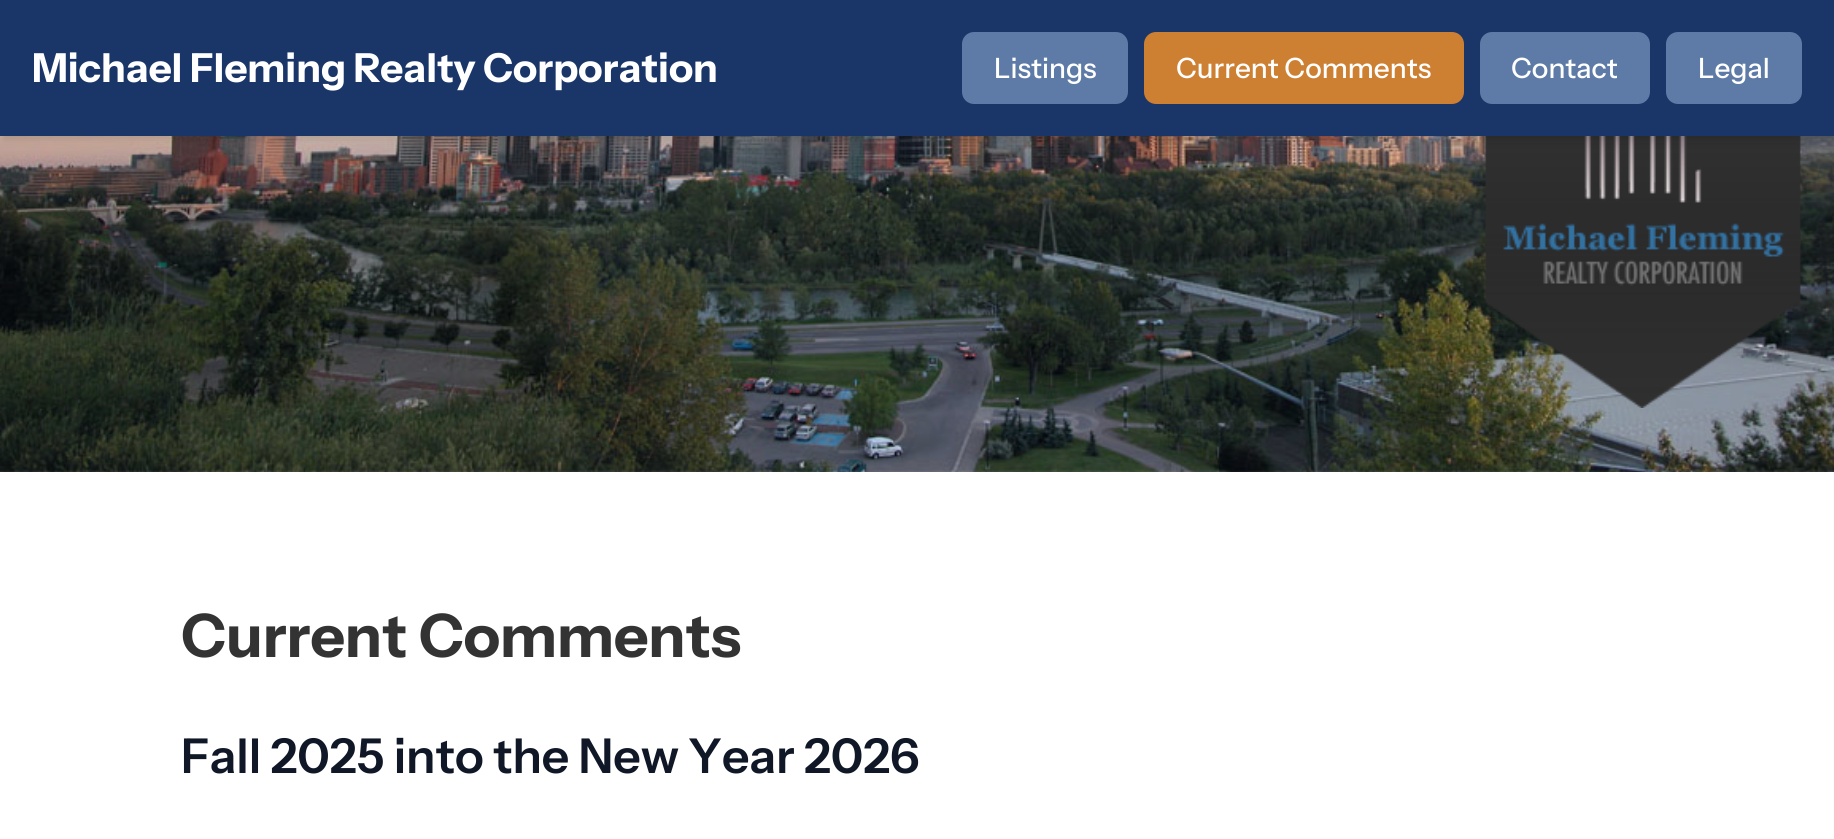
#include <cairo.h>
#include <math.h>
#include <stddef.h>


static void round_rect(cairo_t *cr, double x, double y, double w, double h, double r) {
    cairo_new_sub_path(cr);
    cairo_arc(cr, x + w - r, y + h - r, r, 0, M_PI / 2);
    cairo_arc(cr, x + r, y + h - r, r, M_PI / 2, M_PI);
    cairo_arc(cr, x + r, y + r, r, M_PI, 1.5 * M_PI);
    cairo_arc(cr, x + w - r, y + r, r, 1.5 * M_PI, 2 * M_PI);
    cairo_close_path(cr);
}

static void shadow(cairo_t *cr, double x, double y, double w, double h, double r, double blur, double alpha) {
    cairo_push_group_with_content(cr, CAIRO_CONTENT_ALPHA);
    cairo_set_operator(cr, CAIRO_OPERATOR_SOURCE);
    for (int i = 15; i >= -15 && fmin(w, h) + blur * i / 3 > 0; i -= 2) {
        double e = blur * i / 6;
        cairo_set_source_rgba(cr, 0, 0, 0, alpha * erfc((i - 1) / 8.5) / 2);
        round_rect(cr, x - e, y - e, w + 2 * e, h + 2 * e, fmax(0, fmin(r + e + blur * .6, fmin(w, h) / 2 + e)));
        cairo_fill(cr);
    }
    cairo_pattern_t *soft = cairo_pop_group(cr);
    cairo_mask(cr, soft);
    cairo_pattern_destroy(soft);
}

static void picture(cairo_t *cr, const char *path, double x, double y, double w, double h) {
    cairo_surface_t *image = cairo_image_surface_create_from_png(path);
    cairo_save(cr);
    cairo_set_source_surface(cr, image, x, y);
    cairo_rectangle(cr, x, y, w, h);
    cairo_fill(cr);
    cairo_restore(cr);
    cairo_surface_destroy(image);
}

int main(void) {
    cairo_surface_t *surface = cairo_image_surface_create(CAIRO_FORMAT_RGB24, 1834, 839);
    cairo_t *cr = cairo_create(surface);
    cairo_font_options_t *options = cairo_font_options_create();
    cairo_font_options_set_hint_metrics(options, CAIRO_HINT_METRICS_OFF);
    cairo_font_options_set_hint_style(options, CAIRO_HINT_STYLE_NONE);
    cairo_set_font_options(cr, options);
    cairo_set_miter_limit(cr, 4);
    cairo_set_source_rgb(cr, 1, 1, 1);
    cairo_paint(cr);
    picture(cr, "img1.png", 0, 136, 1834, 336);
    picture(cr, "img2.png", 1484, 136, 317, 272);
    cairo_set_source_rgb(cr, 0, 0, 0);
    shadow(cr, 4, 8, 1826, 128, 0, 4, 0.1);
    shadow(cr, 2, 10, 1830, 132, 0, 6, 0.1);
    cairo_set_source_rgb(cr, 0.102, 0.212, 0.408);
    cairo_rectangle(cr, 0, 0, 1834, 136);
    cairo_fill(cr);
    cairo_select_font_face(cr, "Instrument Sans", CAIRO_FONT_SLANT_NORMAL, CAIRO_FONT_WEIGHT_BOLD);
    cairo_set_font_size(cr, 40);
    cairo_set_source_rgb(cr, 1, 1, 1);
    cairo_move_to(cr, 32, 82);
    cairo_show_text(cr, "Michael Fleming Realty Corporation");
    cairo_set_source_rgb(cr, 0.365, 0.482, 0.651);
    round_rect(cr, 962, 32, 166, 72, 12);
    cairo_fill(cr);
    cairo_select_font_face(cr, "Instrument Sans Medium", CAIRO_FONT_SLANT_NORMAL, CAIRO_FONT_WEIGHT_NORMAL);
    cairo_set_font_size(cr, 28);
    cairo_set_source_rgb(cr, 1, 1, 1);
    cairo_move_to(cr, 994, 78);
    cairo_show_text(cr, "Listings");
    cairo_set_source_rgb(cr, 0.804, 0.498, 0.196);
    round_rect(cr, 1144, 32, 320, 72, 12);
    cairo_fill(cr);
    cairo_set_source_rgb(cr, 1, 1, 1);
    cairo_move_to(cr, 1176, 78);
    cairo_show_text(cr, "Current Comments");
    cairo_set_source_rgb(cr, 0.365, 0.482, 0.651);
    round_rect(cr, 1480, 32, 170, 72, 12);
    cairo_fill(cr);
    cairo_set_source_rgb(cr, 1, 1, 1);
    cairo_move_to(cr, 1511, 78);
    cairo_show_text(cr, "Contact");
    cairo_set_source_rgb(cr, 0.365, 0.482, 0.651);
    round_rect(cr, 1666, 32, 136, 72, 12);
    cairo_fill(cr);
    cairo_set_source_rgb(cr, 1, 1, 1);
    cairo_move_to(cr, 1698, 78);
    cairo_show_text(cr, "Legal");
    cairo_select_font_face(cr, "Instrument Sans", CAIRO_FONT_SLANT_NORMAL, CAIRO_FONT_WEIGHT_BOLD);
    cairo_set_font_size(cr, 60);
    cairo_set_source_rgb(cr, 0.2, 0.2, 0.2);
    cairo_move_to(cr, 181, 657);
    cairo_show_text(cr, "Current Comments");
    cairo_select_font_face(cr, "Instrument Sans SemiBold", CAIRO_FONT_SLANT_NORMAL, CAIRO_FONT_WEIGHT_NORMAL);
    cairo_set_font_size(cr, 48);
    cairo_set_source_rgb(cr, 0.063, 0.094, 0.157);
    cairo_move_to(cr, 181, 773);
    cairo_show_text(cr, "Fall 2025 into the New Year 2026");
    cairo_surface_write_to_png(surface, "page.png");
    cairo_font_options_destroy(options);
    cairo_destroy(cr);
    cairo_surface_destroy(surface);
    return 0;
}
